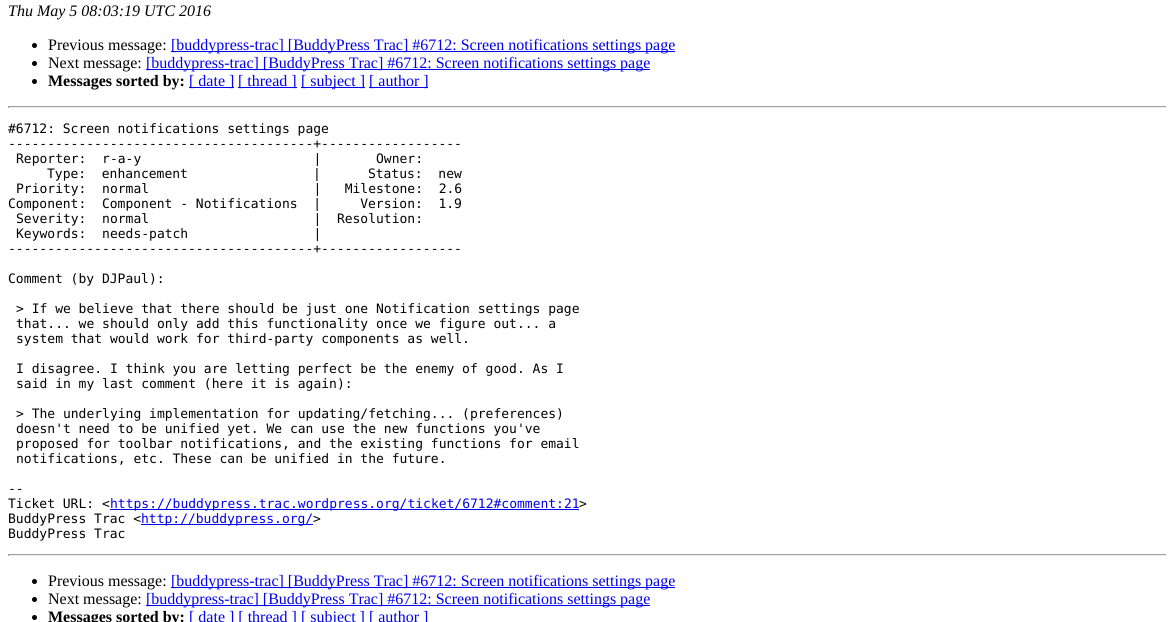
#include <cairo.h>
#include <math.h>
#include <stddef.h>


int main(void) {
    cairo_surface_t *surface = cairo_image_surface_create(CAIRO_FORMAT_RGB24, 1175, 622);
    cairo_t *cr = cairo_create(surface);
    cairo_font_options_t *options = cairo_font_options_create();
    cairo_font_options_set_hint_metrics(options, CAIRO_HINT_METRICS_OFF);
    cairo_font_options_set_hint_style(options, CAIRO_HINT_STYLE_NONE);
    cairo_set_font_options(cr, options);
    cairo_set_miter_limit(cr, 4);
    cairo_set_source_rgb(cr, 1, 1, 1);
    cairo_paint(cr);
    cairo_select_font_face(cr, "Liberation Serif", CAIRO_FONT_SLANT_ITALIC, CAIRO_FONT_WEIGHT_NORMAL);
    cairo_set_font_size(cr, 16);
    cairo_set_source_rgb(cr, 0, 0, 0);
    cairo_move_to(cr, 8, 16);
    cairo_show_text(cr, "Thu May 5 08:03:19 UTC 2016");
    cairo_new_path(cr);
    cairo_arc(cr, 34.5, 45.5, 2.5, 0, 2 * M_PI);
    cairo_fill(cr);
    cairo_select_font_face(cr, "Liberation Serif", CAIRO_FONT_SLANT_NORMAL, CAIRO_FONT_WEIGHT_NORMAL);
    cairo_move_to(cr, 48, 50);
    cairo_show_text(cr, "Previous message:");
    cairo_set_source_rgb(cr, 0, 0, 0.933);
    cairo_rectangle(cr, 171, 51, 504, 1);
    cairo_fill(cr);
    cairo_move_to(cr, 171, 50);
    cairo_show_text(cr, "[buddypress-trac] [BuddyPress Trac] #6712: Screen notifications settings page");
    cairo_set_source_rgb(cr, 0, 0, 0);
    cairo_new_path(cr);
    cairo_arc(cr, 34.5, 63.5, 2.5, 0, 2 * M_PI);
    cairo_fill(cr);
    cairo_move_to(cr, 48, 68);
    cairo_show_text(cr, "Next message:");
    cairo_set_source_rgb(cr, 0, 0, 0.933);
    cairo_rectangle(cr, 146, 69, 504, 1);
    cairo_fill(cr);
    cairo_move_to(cr, 146, 68);
    cairo_show_text(cr, "[buddypress-trac] [BuddyPress Trac] #6712: Screen notifications settings page");
    cairo_set_source_rgb(cr, 0, 0, 0);
    cairo_new_path(cr);
    cairo_arc(cr, 34.5, 81.5, 2.5, 0, 2 * M_PI);
    cairo_fill(cr);
    cairo_select_font_face(cr, "Liberation Serif", CAIRO_FONT_SLANT_NORMAL, CAIRO_FONT_WEIGHT_BOLD);
    cairo_move_to(cr, 48, 86);
    cairo_show_text(cr, "Messages sorted by:");
    cairo_set_source_rgb(cr, 0, 0, 0.933);
    cairo_rectangle(cr, 189, 87, 45, 1);
    cairo_fill(cr);
    cairo_select_font_face(cr, "Liberation Serif", CAIRO_FONT_SLANT_NORMAL, CAIRO_FONT_WEIGHT_NORMAL);
    cairo_move_to(cr, 189, 86);
    cairo_show_text(cr, "[ date ]");
    cairo_rectangle(cr, 238, 87, 59, 1);
    cairo_fill(cr);
    cairo_move_to(cr, 238, 86);
    cairo_show_text(cr, "[ thread ]");
    cairo_rectangle(cr, 301, 87, 64, 1);
    cairo_fill(cr);
    cairo_move_to(cr, 301, 86);
    cairo_show_text(cr, "[ subject ]");
    cairo_rectangle(cr, 369, 87, 59, 1);
    cairo_fill(cr);
    cairo_move_to(cr, 369, 86);
    cairo_show_text(cr, "[ author ]");
    cairo_set_source_rgb(cr, 0.624, 0.624, 0.624);
    cairo_rectangle(cr, 8, 106, 1159, 1);
    cairo_fill(cr);
    cairo_set_source_rgb(cr, 0.933, 0.933, 0.933);
    cairo_rectangle(cr, 1166, 106, 1, 2);
    cairo_fill(cr);
    cairo_rectangle(cr, 8, 107, 1159, 1);
    cairo_fill(cr);
    cairo_set_source_rgb(cr, 0.624, 0.624, 0.624);
    cairo_rectangle(cr, 8, 106, 1, 2);
    cairo_fill(cr);
    cairo_select_font_face(cr, "DejaVu Sans Mono", CAIRO_FONT_SLANT_NORMAL, CAIRO_FONT_WEIGHT_NORMAL);
    cairo_set_font_size(cr, 13);
    cairo_set_source_rgb(cr, 0, 0, 0);
    cairo_move_to(cr, 8, 133);
    cairo_show_text(cr, "#6712: Screen notifications settings page");
    cairo_move_to(cr, 8, 148);
    cairo_show_text(cr, "---------------------------------------+------------------");
    cairo_move_to(cr, 16, 163);
    cairo_show_text(cr, "Reporter:  r-a-y                      |       Owner:");
    cairo_move_to(cr, 47, 178);
    cairo_show_text(cr, "Type:  enhancement                |      Status:  new");
    cairo_move_to(cr, 16, 193);
    cairo_show_text(cr, "Priority:  normal                     |   Milestone:  2.6");
    cairo_move_to(cr, 8, 208);
    cairo_show_text(cr, "Component:  Component - Notifications  |     Version:  1.9");
    cairo_move_to(cr, 16, 223);
    cairo_show_text(cr, "Severity:  normal                     |  Resolution:");
    cairo_move_to(cr, 16, 238);
    cairo_show_text(cr, "Keywords:  needs-patch                |");
    cairo_move_to(cr, 8, 253);
    cairo_show_text(cr, "---------------------------------------+------------------");
    cairo_move_to(cr, 8, 283);
    cairo_show_text(cr, "Comment (by DJPaul):");
    cairo_move_to(cr, 16, 313);
    cairo_show_text(cr, "> If we believe that there should be just one Notification settings page");
    cairo_move_to(cr, 16, 328);
    cairo_show_text(cr, "that... we should only add this functionality once we figure out... a");
    cairo_move_to(cr, 16, 343);
    cairo_show_text(cr, "system that would work for third-party components as well.");
    cairo_move_to(cr, 16, 373);
    cairo_show_text(cr, "I disagree. I think you are letting perfect be the enemy of good. As I");
    cairo_move_to(cr, 16, 388);
    cairo_show_text(cr, "said in my last comment (here it is again):");
    cairo_move_to(cr, 16, 418);
    cairo_show_text(cr, "> The underlying implementation for updating/fetching... (preferences)");
    cairo_move_to(cr, 16, 433);
    cairo_show_text(cr, "doesn't need to be unified yet. We can use the new functions you've");
    cairo_move_to(cr, 16, 448);
    cairo_show_text(cr, "proposed for toolbar notifications, and the existing functions for email");
    cairo_move_to(cr, 16, 463);
    cairo_show_text(cr, "notifications, etc. These can be unified in the future.");
    cairo_move_to(cr, 8, 493);
    cairo_show_text(cr, "--");
    cairo_move_to(cr, 8, 508);
    cairo_show_text(cr, "Ticket URL: <");
    cairo_set_source_rgb(cr, 0, 0, 0.933);
    cairo_rectangle(cr, 110, 509, 469, 1);
    cairo_fill(cr);
    cairo_move_to(cr, 110, 508);
    cairo_show_text(cr, "https://buddypress.trac.wordpress.org/ticket/6712#comment:21");
    cairo_set_source_rgb(cr, 0, 0, 0);
    cairo_move_to(cr, 579, 508);
    cairo_show_text(cr, ">");
    cairo_move_to(cr, 8, 523);
    cairo_show_text(cr, "BuddyPress Trac <");
    cairo_set_source_rgb(cr, 0, 0, 0.933);
    cairo_rectangle(cr, 141, 524, 172, 1);
    cairo_fill(cr);
    cairo_move_to(cr, 141, 523);
    cairo_show_text(cr, "http://buddypress.org/");
    cairo_set_source_rgb(cr, 0, 0, 0);
    cairo_move_to(cr, 313, 523);
    cairo_show_text(cr, ">");
    cairo_move_to(cr, 8, 538);
    cairo_show_text(cr, "BuddyPress Trac");
    cairo_set_source_rgb(cr, 0.624, 0.624, 0.624);
    cairo_rectangle(cr, 8, 554, 1159, 1);
    cairo_fill(cr);
    cairo_set_source_rgb(cr, 0.933, 0.933, 0.933);
    cairo_rectangle(cr, 1166, 554, 1, 2);
    cairo_fill(cr);
    cairo_rectangle(cr, 8, 555, 1159, 1);
    cairo_fill(cr);
    cairo_set_source_rgb(cr, 0.624, 0.624, 0.624);
    cairo_rectangle(cr, 8, 554, 1, 2);
    cairo_fill(cr);
    cairo_set_source_rgb(cr, 0, 0, 0);
    cairo_arc(cr, 34.5, 581.5, 2.5, 0, 2 * M_PI);
    cairo_fill(cr);
    cairo_select_font_face(cr, "Liberation Serif", CAIRO_FONT_SLANT_NORMAL, CAIRO_FONT_WEIGHT_NORMAL);
    cairo_set_font_size(cr, 16);
    cairo_move_to(cr, 48, 586);
    cairo_show_text(cr, "Previous message:");
    cairo_set_source_rgb(cr, 0, 0, 0.933);
    cairo_rectangle(cr, 171, 587, 504, 1);
    cairo_fill(cr);
    cairo_move_to(cr, 171, 586);
    cairo_show_text(cr, "[buddypress-trac] [BuddyPress Trac] #6712: Screen notifications settings page");
    cairo_set_source_rgb(cr, 0, 0, 0);
    cairo_new_path(cr);
    cairo_arc(cr, 34.5, 599.5, 2.5, 0, 2 * M_PI);
    cairo_fill(cr);
    cairo_move_to(cr, 48, 604);
    cairo_show_text(cr, "Next message:");
    cairo_set_source_rgb(cr, 0, 0, 0.933);
    cairo_rectangle(cr, 146, 605, 504, 1);
    cairo_fill(cr);
    cairo_move_to(cr, 146, 604);
    cairo_show_text(cr, "[buddypress-trac] [BuddyPress Trac] #6712: Screen notifications settings page");
    cairo_set_source_rgb(cr, 0, 0, 0);
    cairo_new_path(cr);
    cairo_arc(cr, 34.5, 617.5, 2.5, 0, 2 * M_PI);
    cairo_fill(cr);
    cairo_select_font_face(cr, "Liberation Serif", CAIRO_FONT_SLANT_NORMAL, CAIRO_FONT_WEIGHT_BOLD);
    cairo_move_to(cr, 48, 622);
    cairo_show_text(cr, "Messages sorted by:");
    cairo_select_font_face(cr, "Liberation Serif", CAIRO_FONT_SLANT_NORMAL, CAIRO_FONT_WEIGHT_NORMAL);
    cairo_set_source_rgb(cr, 0, 0, 0.933);
    cairo_move_to(cr, 189, 622);
    cairo_show_text(cr, "[ date ] [ thread ] [ subject ] [ author ]");
    cairo_surface_write_to_png(surface, "page.png");
    cairo_font_options_destroy(options);
    cairo_destroy(cr);
    cairo_surface_destroy(surface);
    return 0;
}
